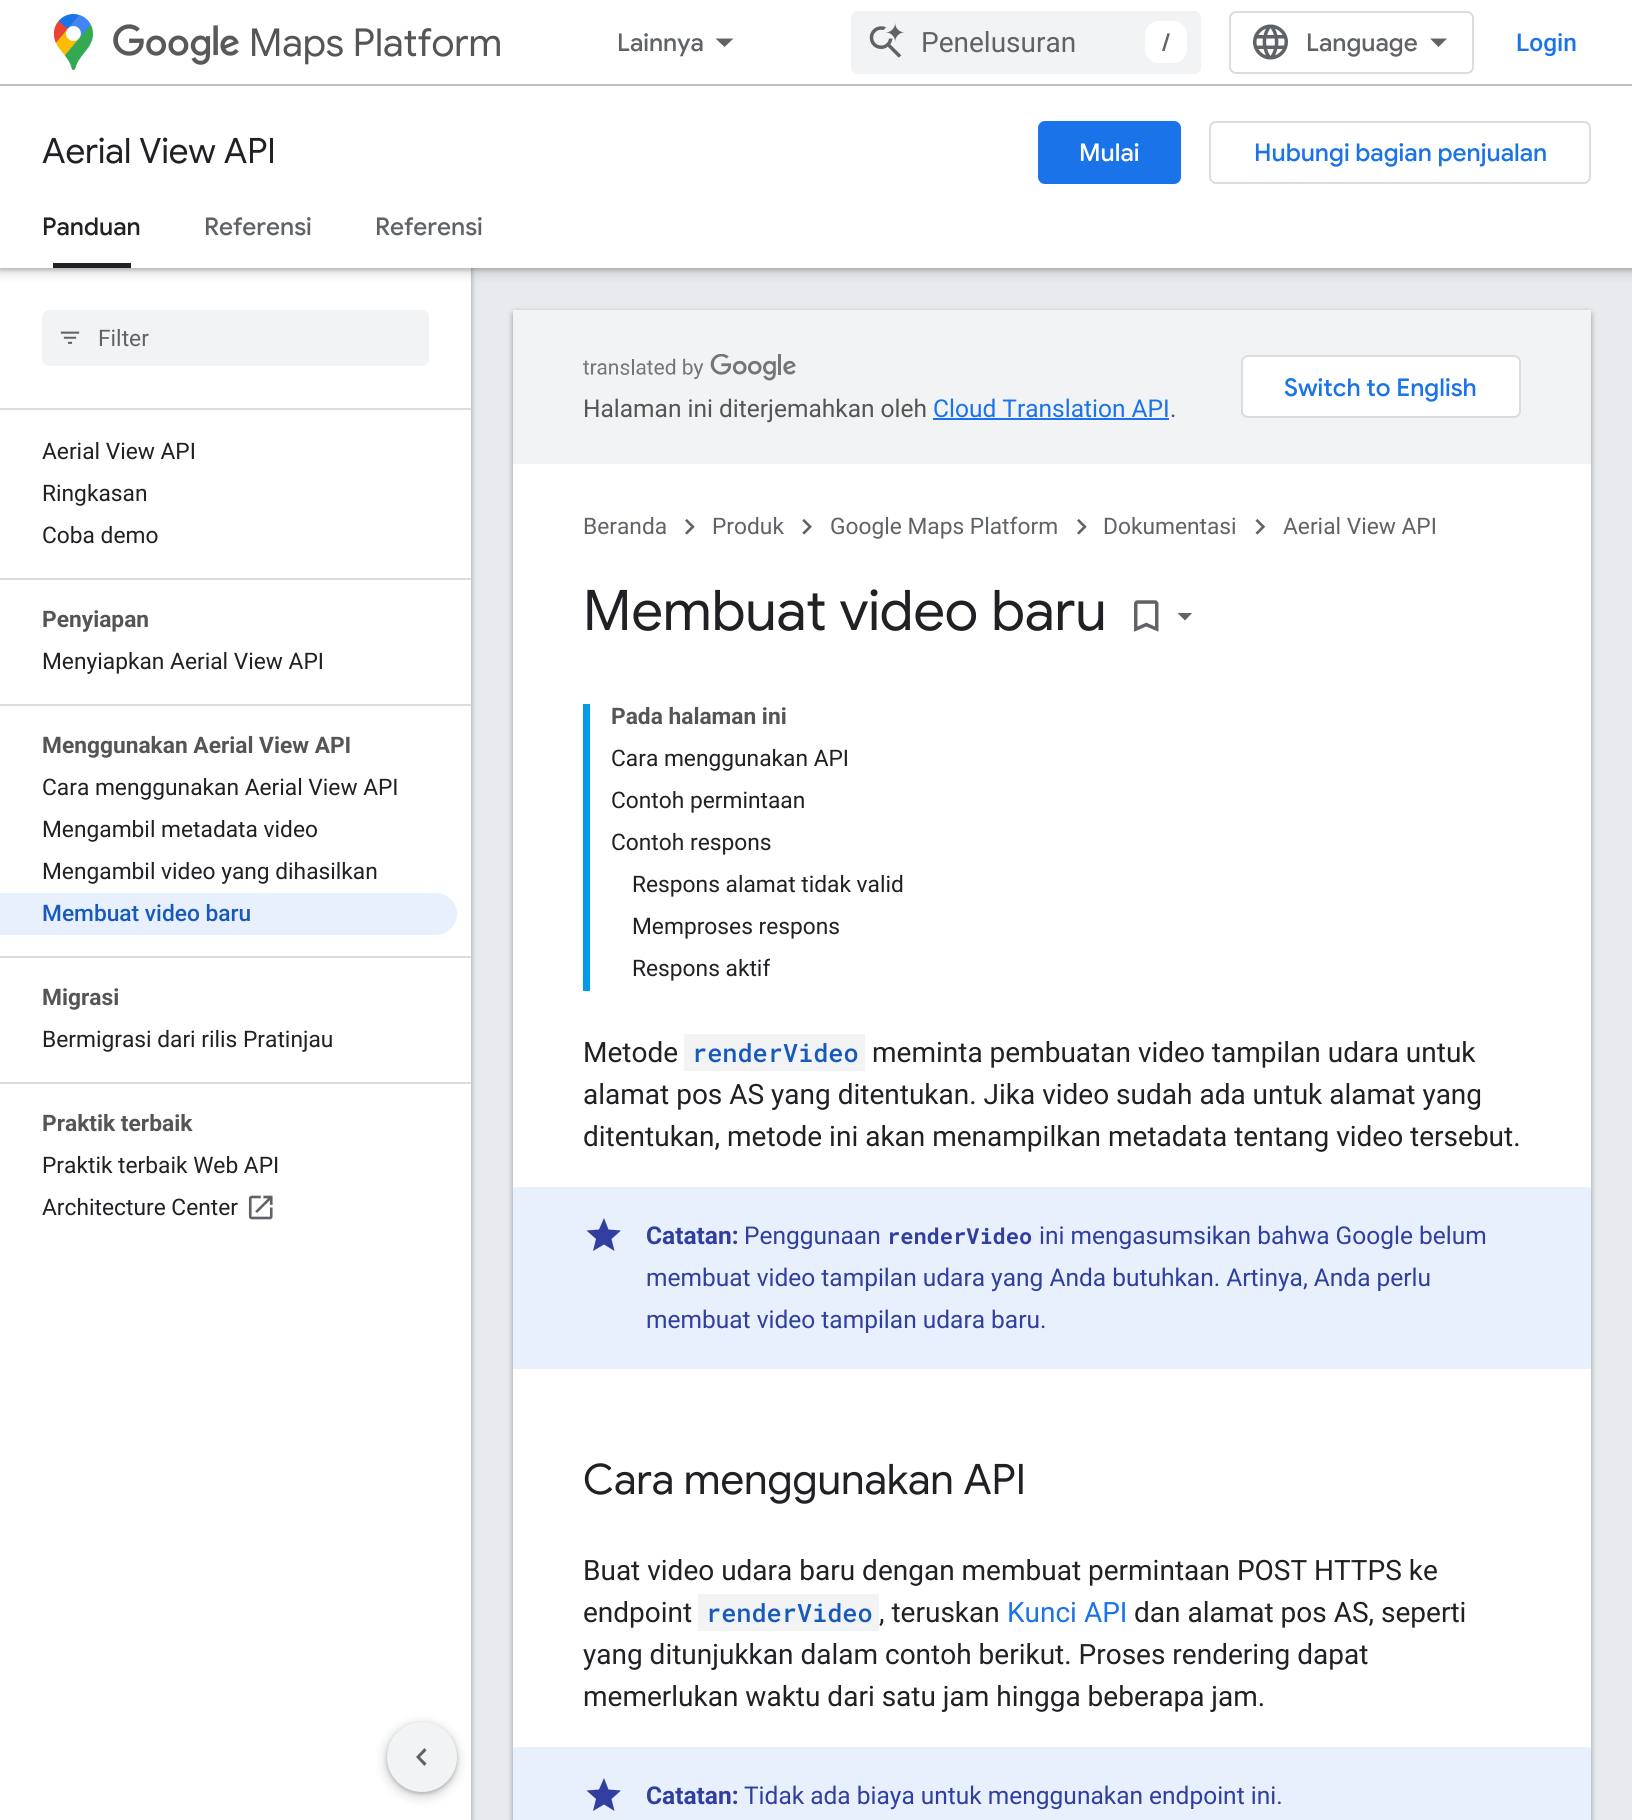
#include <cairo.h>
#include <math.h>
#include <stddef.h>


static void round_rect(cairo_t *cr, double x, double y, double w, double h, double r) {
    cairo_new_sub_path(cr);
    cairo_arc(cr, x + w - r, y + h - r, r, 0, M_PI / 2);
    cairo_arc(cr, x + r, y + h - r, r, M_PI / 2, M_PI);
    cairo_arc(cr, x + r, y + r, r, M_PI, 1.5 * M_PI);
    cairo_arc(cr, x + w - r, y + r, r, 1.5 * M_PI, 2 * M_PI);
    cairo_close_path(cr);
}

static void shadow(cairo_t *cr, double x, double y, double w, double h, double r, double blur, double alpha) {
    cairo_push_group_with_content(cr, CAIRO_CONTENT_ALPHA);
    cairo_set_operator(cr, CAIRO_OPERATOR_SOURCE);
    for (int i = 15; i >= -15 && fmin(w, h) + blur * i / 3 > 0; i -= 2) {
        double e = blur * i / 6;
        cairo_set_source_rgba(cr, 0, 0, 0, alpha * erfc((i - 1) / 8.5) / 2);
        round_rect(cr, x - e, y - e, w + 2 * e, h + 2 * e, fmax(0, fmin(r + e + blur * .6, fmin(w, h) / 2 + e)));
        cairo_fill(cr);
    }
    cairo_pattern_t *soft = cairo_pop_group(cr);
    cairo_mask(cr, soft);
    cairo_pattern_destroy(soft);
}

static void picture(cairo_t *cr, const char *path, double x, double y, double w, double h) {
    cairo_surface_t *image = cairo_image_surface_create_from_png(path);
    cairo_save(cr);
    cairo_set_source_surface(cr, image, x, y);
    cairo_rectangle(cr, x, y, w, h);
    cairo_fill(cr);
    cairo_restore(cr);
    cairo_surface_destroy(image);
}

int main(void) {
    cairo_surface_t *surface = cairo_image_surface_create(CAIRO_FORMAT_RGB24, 1632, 1820);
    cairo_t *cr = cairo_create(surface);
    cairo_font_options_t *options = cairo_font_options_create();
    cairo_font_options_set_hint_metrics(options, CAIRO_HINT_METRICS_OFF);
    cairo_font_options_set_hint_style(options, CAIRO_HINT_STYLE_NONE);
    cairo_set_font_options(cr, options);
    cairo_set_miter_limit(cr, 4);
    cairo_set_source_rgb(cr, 0.91, 0.918, 0.929);
    cairo_paint(cr);
    cairo_set_source_rgb(cr, 0.235, 0.251, 0.263);
    shadow(cr, -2, 0, 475, 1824, 0, 2.5, 0.15);
    shadow(cr, 0, 2, 471, 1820, 0, 2, 0.3);
    cairo_set_source_rgb(cr, 1, 1, 1);
    cairo_rectangle(cr, 0, 268, 471, 1552);
    cairo_fill(cr);
    cairo_set_source_rgb(cr, 0.235, 0.251, 0.263);
    shadow(cr, -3, 86, 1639, 189, 0, 5, 0.15);
    shadow(cr, 0, 88, 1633, 182, 0, 2, 0.3);
    cairo_set_source_rgb(cr, 1, 1, 1);
    cairo_rectangle(cr, 0, 0, 1632, 84);
    cairo_fill(cr);
    cairo_set_source_rgb(cr, 0.741, 0.757, 0.776);
    cairo_rectangle(cr, 0, 84, 1632, 2);
    cairo_fill(cr);
    picture(cr, "img1.png", 54, 14, 39, 56);
    picture(cr, "img2.png", 113, 24, 126, 41);
    cairo_select_font_face(cr, "Google Sans", CAIRO_FONT_SLANT_NORMAL, CAIRO_FONT_WEIGHT_NORMAL);
    cairo_set_font_size(cr, 38.5);
    cairo_set_source_rgb(cr, 0.329, 0.333, 0.333);
    cairo_move_to(cr, 249, 56);
    cairo_show_text(cr, "Maps Platform");
    cairo_select_font_face(cr, "Google Sans Medium", CAIRO_FONT_SLANT_NORMAL, CAIRO_FONT_WEIGHT_NORMAL);
    cairo_set_font_size(cr, 24.5);
    cairo_set_source_rgb(cr, 0.373, 0.388, 0.408);
    cairo_move_to(cr, 617, 51);
    cairo_show_text(cr, "Lainnya");
    cairo_new_path(cr);
    cairo_move_to(cr, 715.5, 38.5);
    cairo_line_to(cr, 733.5, 38.5);
    cairo_line_to(cr, 724.5, 47);
    cairo_close_path(cr);
    cairo_fill(cr);
    cairo_set_source_rgb(cr, 0.945, 0.953, 0.957);
    round_rect(cr, 851, 11, 350, 63, 7);
    cairo_fill(cr);
    picture(cr, "img3.png", 869, 23, 36, 35);
    cairo_select_font_face(cr, "Roboto", CAIRO_FONT_SLANT_NORMAL, CAIRO_FONT_WEIGHT_NORMAL);
    cairo_set_font_size(cr, 28);
    cairo_set_source_rgb(cr, 0.373, 0.388, 0.408);
    cairo_move_to(cr, 921, 52);
    cairo_show_text(cr, "Penelusuran");
    cairo_set_source_rgb(cr, 1, 1, 1);
    round_rect(cr, 1145, 21, 42, 42, 14);
    cairo_fill(cr);
    cairo_select_font_face(cr, "Google Sans Medium", CAIRO_FONT_SLANT_NORMAL, CAIRO_FONT_WEIGHT_NORMAL);
    cairo_set_font_size(cr, 24.5);
    cairo_set_source_rgb(cr, 0.373, 0.388, 0.408);
    cairo_move_to(cr, 1162, 51);
    cairo_show_text(cr, "/");
    round_rect(cr, 1230, 12, 243, 61, 6);
    cairo_set_source_rgb(cr, 0.855, 0.863, 0.878);
    cairo_stroke(cr);
    picture(cr, "img4.png", 1253, 24, 35, 36);
    cairo_set_source_rgb(cr, 0.373, 0.388, 0.408);
    cairo_move_to(cr, 1306, 51);
    cairo_show_text(cr, "Language");
    cairo_new_path(cr);
    cairo_move_to(cr, 1438.5, 47);
    cairo_line_to(cr, 1430, 38.5);
    cairo_line_to(cr, 1447, 38.5);
    cairo_close_path(cr);
    cairo_fill(cr);
    cairo_select_font_face(cr, "Roboto Medium", CAIRO_FONT_SLANT_NORMAL, CAIRO_FONT_WEIGHT_NORMAL);
    cairo_set_source_rgb(cr, 0.102, 0.451, 0.91);
    cairo_move_to(cr, 1516, 51);
    cairo_show_text(cr, "Login");
    cairo_set_source_rgb(cr, 1, 1, 1);
    cairo_rectangle(cr, 0, 86, 1632, 182);
    cairo_fill(cr);
    cairo_select_font_face(cr, "Google Sans", CAIRO_FONT_SLANT_NORMAL, CAIRO_FONT_WEIGHT_NORMAL);
    cairo_set_font_size(cr, 35);
    cairo_set_source_rgb(cr, 0.125, 0.129, 0.141);
    cairo_move_to(cr, 42, 163);
    cairo_show_text(cr, "Aerial View API");
    cairo_set_source_rgb(cr, 0.102, 0.451, 0.91);
    round_rect(cr, 1038, 121, 143, 63, 7);
    cairo_fill(cr);
    cairo_select_font_face(cr, "Google Sans Medium", CAIRO_FONT_SLANT_NORMAL, CAIRO_FONT_WEIGHT_NORMAL);
    cairo_set_font_size(cr, 24.5);
    cairo_set_source_rgb(cr, 1, 1, 1);
    cairo_move_to(cr, 1079, 161);
    cairo_show_text(cr, "Mulai");
    round_rect(cr, 1210, 122, 380, 61, 6);
    cairo_set_source_rgb(cr, 0.855, 0.863, 0.878);
    cairo_stroke(cr);
    cairo_set_source_rgb(cr, 0.102, 0.451, 0.91);
    cairo_move_to(cr, 1254, 161);
    cairo_show_text(cr, "Hubungi bagian penjualan");
    cairo_set_source_rgb(cr, 0.125, 0.129, 0.141);
    cairo_move_to(cr, 42, 235);
    cairo_show_text(cr, "Panduan");
    cairo_rectangle(cr, 53, 263, 78, 5);
    cairo_fill(cr);
    cairo_set_source_rgb(cr, 0.373, 0.388, 0.408);
    cairo_move_to(cr, 204, 235);
    cairo_show_text(cr, "Referensi");
    cairo_move_to(cr, 375, 235);
    cairo_show_text(cr, "Referensi");
    cairo_set_source_rgb(cr, 0.855, 0.863, 0.878);
    cairo_rectangle(cr, 0, 408, 471, 2);
    cairo_fill(cr);
    cairo_set_source_rgb(cr, 0.945, 0.953, 0.957);
    round_rect(cr, 42, 310, 387, 56, 7);
    cairo_fill(cr);
    picture(cr, "img5.png", 60, 331, 20, 13);
    cairo_select_font_face(cr, "Roboto", CAIRO_FONT_SLANT_NORMAL, CAIRO_FONT_WEIGHT_NORMAL);
    cairo_set_font_size(cr, 22.75);
    cairo_set_source_rgb(cr, 0.373, 0.388, 0.408);
    cairo_move_to(cr, 98, 346);
    cairo_show_text(cr, "Filter");
    cairo_set_source_rgb(cr, 0.125, 0.129, 0.141);
    cairo_move_to(cr, 42, 459);
    cairo_show_text(cr, "Aerial View API");
    cairo_move_to(cr, 42, 501);
    cairo_show_text(cr, "Ringkasan");
    cairo_move_to(cr, 42, 543);
    cairo_show_text(cr, "Coba demo");
    cairo_set_source_rgb(cr, 0.855, 0.863, 0.878);
    cairo_rectangle(cr, 0, 578, 471, 2);
    cairo_fill(cr);
    cairo_select_font_face(cr, "Roboto", CAIRO_FONT_SLANT_NORMAL, CAIRO_FONT_WEIGHT_BOLD);
    cairo_set_source_rgb(cr, 0.329, 0.333, 0.333);
    cairo_move_to(cr, 42, 627);
    cairo_show_text(cr, "Penyiapan");
    cairo_select_font_face(cr, "Roboto", CAIRO_FONT_SLANT_NORMAL, CAIRO_FONT_WEIGHT_NORMAL);
    cairo_set_source_rgb(cr, 0.125, 0.129, 0.141);
    cairo_move_to(cr, 42, 669);
    cairo_show_text(cr, "Menyiapkan Aerial View API");
    cairo_set_source_rgb(cr, 0.855, 0.863, 0.878);
    cairo_rectangle(cr, 0, 704, 471, 2);
    cairo_fill(cr);
    cairo_select_font_face(cr, "Roboto", CAIRO_FONT_SLANT_NORMAL, CAIRO_FONT_WEIGHT_BOLD);
    cairo_set_source_rgb(cr, 0.329, 0.333, 0.333);
    cairo_move_to(cr, 42, 753);
    cairo_show_text(cr, "Menggunakan Aerial View API");
    cairo_select_font_face(cr, "Roboto", CAIRO_FONT_SLANT_NORMAL, CAIRO_FONT_WEIGHT_NORMAL);
    cairo_set_source_rgb(cr, 0.125, 0.129, 0.141);
    cairo_move_to(cr, 42, 795);
    cairo_show_text(cr, "Cara menggunakan Aerial View API");
    cairo_move_to(cr, 42, 837);
    cairo_show_text(cr, "Mengambil metadata video");
    cairo_move_to(cr, 42, 879);
    cairo_show_text(cr, "Mengambil video yang dihasilkan");
    cairo_set_source_rgb(cr, 0.91, 0.941, 0.996);
    cairo_new_path(cr);
    cairo_move_to(cr, 0, 893);
    cairo_line_to(cr, 436, 893);
    cairo_curve_to(cr, 447.5, 893, 457, 902.5, 457, 914);
    cairo_curve_to(cr, 457, 925.5, 447.5, 935, 436, 935);
    cairo_line_to(cr, 0, 935);
    cairo_close_path(cr);
    cairo_fill(cr);
    cairo_select_font_face(cr, "Roboto Medium", CAIRO_FONT_SLANT_NORMAL, CAIRO_FONT_WEIGHT_NORMAL);
    cairo_set_source_rgb(cr, 0.094, 0.353, 0.737);
    cairo_move_to(cr, 42, 921);
    cairo_show_text(cr, "Membuat video baru");
    cairo_set_source_rgb(cr, 0.855, 0.863, 0.878);
    cairo_rectangle(cr, 0, 956, 471, 2);
    cairo_fill(cr);
    cairo_select_font_face(cr, "Roboto", CAIRO_FONT_SLANT_NORMAL, CAIRO_FONT_WEIGHT_BOLD);
    cairo_set_source_rgb(cr, 0.329, 0.333, 0.333);
    cairo_move_to(cr, 42, 1005);
    cairo_show_text(cr, "Migrasi");
    cairo_select_font_face(cr, "Roboto", CAIRO_FONT_SLANT_NORMAL, CAIRO_FONT_WEIGHT_NORMAL);
    cairo_set_source_rgb(cr, 0.125, 0.129, 0.141);
    cairo_move_to(cr, 42, 1047);
    cairo_show_text(cr, "Bermigrasi dari rilis Pratinjau");
    cairo_set_source_rgb(cr, 0.855, 0.863, 0.878);
    cairo_rectangle(cr, 0, 1082, 471, 2);
    cairo_fill(cr);
    cairo_select_font_face(cr, "Roboto", CAIRO_FONT_SLANT_NORMAL, CAIRO_FONT_WEIGHT_BOLD);
    cairo_set_source_rgb(cr, 0.329, 0.333, 0.333);
    cairo_move_to(cr, 42, 1131);
    cairo_show_text(cr, "Praktik terbaik");
    cairo_select_font_face(cr, "Roboto", CAIRO_FONT_SLANT_NORMAL, CAIRO_FONT_WEIGHT_NORMAL);
    cairo_set_source_rgb(cr, 0.125, 0.129, 0.141);
    cairo_move_to(cr, 42, 1173);
    cairo_show_text(cr, "Praktik terbaik Web API");
    cairo_move_to(cr, 42, 1215);
    cairo_show_text(cr, "Architecture Center");
    picture(cr, "img6.png", 248, 1195, 25, 25);
    cairo_set_source_rgb(cr, 0.235, 0.251, 0.263);
    shadow(cr, 383, 1722, 77, 77, 38.5, 5, 0.15);
    shadow(cr, 387, 1724, 70, 70, 35, 2, 0.3);
    cairo_set_source_rgb(cr, 0.945, 0.953, 0.957);
    cairo_arc(cr, 422, 1757, 35, 0, 2 * M_PI);
    cairo_fill(cr);
    cairo_set_source_rgb(cr, 0.373, 0.388, 0.408);
    cairo_new_path(cr);
    cairo_move_to(cr, 426.5, 1750.5);
    cairo_line_to(cr, 420, 1757);
    cairo_line_to(cr, 426.5, 1763.5);
    cairo_line_to(cr, 424.5, 1766);
    cairo_line_to(cr, 416, 1757);
    cairo_line_to(cr, 424.5, 1748);
    cairo_close_path(cr);
    cairo_fill(cr);
    cairo_set_source_rgb(cr, 0.235, 0.251, 0.263);
    shadow(cr, 511, 310, 1082, 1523, 5, 2.5, 0.15);
    shadow(cr, 513, 312, 1078, 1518, 4, 2, 0.3);
    cairo_set_source_rgb(cr, 1, 1, 1);
    cairo_rectangle(cr, 513, 464, 1078, 1283);
    cairo_fill(cr);
    cairo_set_source_rgb(cr, 0.945, 0.953, 0.957);
    cairo_rectangle(cr, 513, 310, 1078, 154);
    cairo_fill(cr);
    cairo_set_source_rgb(cr, 1, 1, 1);
    round_rect(cr, 1242, 356, 278, 61, 6);
    cairo_fill_preserve(cr);
    cairo_set_source_rgb(cr, 0.855, 0.863, 0.878);
    cairo_stroke(cr);
    cairo_select_font_face(cr, "Google Sans Medium", CAIRO_FONT_SLANT_NORMAL, CAIRO_FONT_WEIGHT_NORMAL);
    cairo_set_font_size(cr, 24.5);
    cairo_set_source_rgb(cr, 0.102, 0.451, 0.91);
    cairo_move_to(cr, 1284, 396);
    cairo_show_text(cr, "Switch to English");
    picture(cr, "img7.png", 583, 354, 213, 27);
    cairo_select_font_face(cr, "Roboto", CAIRO_FONT_SLANT_NORMAL, CAIRO_FONT_WEIGHT_NORMAL);
    cairo_set_source_rgb(cr, 0.329, 0.333, 0.333);
    cairo_move_to(cr, 583, 417);
    cairo_show_text(cr, "Halaman ini diterjemahkan oleh");
    cairo_set_source_rgb(cr, 0.102, 0.451, 0.91);
    cairo_move_to(cr, 933, 417);
    cairo_show_text(cr, "Cloud Translation API");
    cairo_rectangle(cr, 933, 418, 236, 2);
    cairo_fill(cr);
    cairo_set_source_rgb(cr, 0.329, 0.333, 0.333);
    cairo_move_to(cr, 1170, 417);
    cairo_show_text(cr, ".");
    cairo_set_font_size(cr, 22.75);
    cairo_set_source_rgb(cr, 0.373, 0.388, 0.408);
    cairo_move_to(cr, 583, 534);
    cairo_show_text(cr, "Beranda");
    picture(cr, "img8.png", 685, 519, 10, 16);
    cairo_move_to(cr, 712, 534);
    cairo_show_text(cr, "Produk");
    picture(cr, "img9.png", 802, 519, 10, 16);
    cairo_move_to(cr, 830, 534);
    cairo_show_text(cr, "Google Maps Platform");
    picture(cr, "img8.png", 1077, 519, 10, 16);
    cairo_move_to(cr, 1103, 534);
    cairo_show_text(cr, "Dokumentasi");
    picture(cr, "img10.png", 1255, 519, 11, 16);
    cairo_move_to(cr, 1283, 534);
    cairo_show_text(cr, "Aerial View API");
    cairo_select_font_face(cr, "Google Sans", CAIRO_FONT_SLANT_NORMAL, CAIRO_FONT_WEIGHT_NORMAL);
    cairo_set_font_size(cr, 56);
    cairo_set_source_rgb(cr, 0.125, 0.129, 0.141);
    cairo_move_to(cr, 583, 630);
    cairo_show_text(cr, "Membuat video baru");
    picture(cr, "img11.png", 1134, 600, 25, 32);
    cairo_set_source_rgb(cr, 0.373, 0.388, 0.408);
    cairo_new_path(cr);
    cairo_move_to(cr, 1177.5, 613);
    cairo_line_to(cr, 1192, 613);
    cairo_line_to(cr, 1185, 620.5);
    cairo_close_path(cr);
    cairo_fill(cr);
    cairo_set_source_rgb(cr, 0.012, 0.608, 0.898);
    cairo_rectangle(cr, 583, 704, 7, 287);
    cairo_fill(cr);
    cairo_select_font_face(cr, "Roboto", CAIRO_FONT_SLANT_NORMAL, CAIRO_FONT_WEIGHT_BOLD);
    cairo_set_font_size(cr, 22.75);
    cairo_set_source_rgb(cr, 0.329, 0.333, 0.333);
    cairo_move_to(cr, 611, 724);
    cairo_show_text(cr, "Pada halaman ini");
    cairo_select_font_face(cr, "Roboto", CAIRO_FONT_SLANT_NORMAL, CAIRO_FONT_WEIGHT_NORMAL);
    cairo_set_source_rgb(cr, 0.125, 0.129, 0.141);
    cairo_move_to(cr, 611, 766);
    cairo_show_text(cr, "Cara menggunakan API");
    cairo_move_to(cr, 611, 808);
    cairo_show_text(cr, "Contoh permintaan");
    cairo_move_to(cr, 611, 850);
    cairo_show_text(cr, "Contoh respons");
    cairo_move_to(cr, 632, 892);
    cairo_show_text(cr, "Respons alamat tidak valid");
    cairo_move_to(cr, 632, 934);
    cairo_show_text(cr, "Memproses respons");
    cairo_move_to(cr, 632, 976);
    cairo_show_text(cr, "Respons aktif");
    cairo_set_font_size(cr, 28);
    cairo_move_to(cr, 583, 1062);
    cairo_show_text(cr, "Metode");
    cairo_set_source_rgb(cr, 0.945, 0.953, 0.957);
    cairo_rectangle(cr, 684, 1034, 181, 37);
    cairo_fill(cr);
    cairo_select_font_face(cr, "Roboto Mono Medium", CAIRO_FONT_SLANT_NORMAL, CAIRO_FONT_WEIGHT_NORMAL);
    cairo_set_font_size(cr, 25.25);
    cairo_set_source_rgb(cr, 0.094, 0.353, 0.737);
    cairo_move_to(cr, 692, 1062);
    cairo_show_text(cr, "renderVideo");
    cairo_select_font_face(cr, "Roboto", CAIRO_FONT_SLANT_NORMAL, CAIRO_FONT_WEIGHT_NORMAL);
    cairo_set_font_size(cr, 28);
    cairo_set_source_rgb(cr, 0.125, 0.129, 0.141);
    cairo_move_to(cr, 872, 1062);
    cairo_show_text(cr, "meminta pembuatan video tampilan udara untuk");
    cairo_move_to(cr, 583, 1104);
    cairo_show_text(cr, "alamat pos AS yang ditentukan. Jika video sudah ada untuk alamat yang");
    cairo_move_to(cr, 583, 1146);
    cairo_show_text(cr, "ditentukan, metode ini akan menampilkan metadata tentang video tersebut.");
    cairo_set_source_rgb(cr, 0.91, 0.941, 0.996);
    cairo_rectangle(cr, 513, 1187, 1078, 182);
    cairo_fill(cr);
    cairo_set_source_rgb(cr, 0.188, 0.247, 0.624);
    cairo_new_path(cr);
    cairo_move_to(cr, 604, 1244.5);
    cairo_line_to(cr, 593, 1251);
    cairo_line_to(cr, 596, 1239);
    cairo_line_to(cr, 586.5, 1230.5);
    cairo_line_to(cr, 599, 1229.5);
    cairo_line_to(cr, 604, 1218);
    cairo_line_to(cr, 608.5, 1229.5);
    cairo_line_to(cr, 621, 1230.5);
    cairo_line_to(cr, 611.5, 1239);
    cairo_line_to(cr, 614.5, 1251);
    cairo_close_path(cr);
    cairo_fill(cr);
    cairo_select_font_face(cr, "Roboto", CAIRO_FONT_SLANT_NORMAL, CAIRO_FONT_WEIGHT_BOLD);
    cairo_set_font_size(cr, 24.5);
    cairo_move_to(cr, 646, 1244);
    cairo_show_text(cr, "Catatan:");
    cairo_select_font_face(cr, "Roboto", CAIRO_FONT_SLANT_NORMAL, CAIRO_FONT_WEIGHT_NORMAL);
    cairo_move_to(cr, 744, 1244);
    cairo_show_text(cr, "Penggunaan");
    cairo_select_font_face(cr, "Roboto Mono", CAIRO_FONT_SLANT_NORMAL, CAIRO_FONT_WEIGHT_BOLD);
    cairo_set_font_size(cr, 22);
    cairo_move_to(cr, 887, 1244);
    cairo_show_text(cr, "renderVideo");
    cairo_select_font_face(cr, "Roboto", CAIRO_FONT_SLANT_NORMAL, CAIRO_FONT_WEIGHT_NORMAL);
    cairo_set_font_size(cr, 24.5);
    cairo_move_to(cr, 1039, 1244);
    cairo_show_text(cr, "ini mengasumsikan bahwa Google belum");
    cairo_move_to(cr, 646, 1286);
    cairo_show_text(cr, "membuat video tampilan udara yang Anda butuhkan. Artinya, Anda perlu");
    cairo_move_to(cr, 646, 1328);
    cairo_show_text(cr, "membuat video tampilan udara baru.");
    cairo_select_font_face(cr, "Google Sans", CAIRO_FONT_SLANT_NORMAL, CAIRO_FONT_WEIGHT_NORMAL);
    cairo_set_font_size(cr, 42);
    cairo_set_source_rgb(cr, 0.125, 0.129, 0.141);
    cairo_move_to(cr, 583, 1494);
    cairo_show_text(cr, "Cara menggunakan API");
    cairo_select_font_face(cr, "Roboto", CAIRO_FONT_SLANT_NORMAL, CAIRO_FONT_WEIGHT_NORMAL);
    cairo_set_font_size(cr, 28);
    cairo_move_to(cr, 583, 1580);
    cairo_show_text(cr, "Buat video udara baru dengan membuat permintaan POST HTTPS ke");
    cairo_move_to(cr, 583, 1622);
    cairo_show_text(cr, "endpoint");
    cairo_set_source_rgb(cr, 0.945, 0.953, 0.957);
    cairo_rectangle(cr, 698, 1594, 181, 37);
    cairo_fill(cr);
    cairo_select_font_face(cr, "Roboto Mono Medium", CAIRO_FONT_SLANT_NORMAL, CAIRO_FONT_WEIGHT_NORMAL);
    cairo_set_font_size(cr, 25.25);
    cairo_set_source_rgb(cr, 0.094, 0.353, 0.737);
    cairo_move_to(cr, 706, 1622);
    cairo_show_text(cr, "renderVideo");
    cairo_select_font_face(cr, "Roboto", CAIRO_FONT_SLANT_NORMAL, CAIRO_FONT_WEIGHT_NORMAL);
    cairo_set_font_size(cr, 28);
    cairo_set_source_rgb(cr, 0.125, 0.129, 0.141);
    cairo_move_to(cr, 879, 1622);
    cairo_show_text(cr, ", teruskan");
    cairo_set_source_rgb(cr, 0.102, 0.451, 0.91);
    cairo_move_to(cr, 1007, 1622);
    cairo_show_text(cr, "Kunci API");
    cairo_set_source_rgb(cr, 0.125, 0.129, 0.141);
    cairo_move_to(cr, 1134, 1622);
    cairo_show_text(cr, "dan alamat pos AS, seperti");
    cairo_move_to(cr, 583, 1664);
    cairo_show_text(cr, "yang ditunjukkan dalam contoh berikut. Proses rendering dapat");
    cairo_move_to(cr, 583, 1706);
    cairo_show_text(cr, "memerlukan waktu dari satu jam hingga beberapa jam.");
    cairo_set_source_rgb(cr, 0.91, 0.941, 0.996);
    cairo_rectangle(cr, 513, 1747, 1078, 73);
    cairo_fill(cr);
    cairo_set_source_rgb(cr, 0.188, 0.247, 0.624);
    cairo_new_path(cr);
    cairo_move_to(cr, 604, 1804.5);
    cairo_line_to(cr, 593, 1811);
    cairo_line_to(cr, 596, 1799);
    cairo_line_to(cr, 586.5, 1790.5);
    cairo_line_to(cr, 599, 1789.5);
    cairo_line_to(cr, 604, 1778);
    cairo_line_to(cr, 608.5, 1789.5);
    cairo_line_to(cr, 621, 1790.5);
    cairo_line_to(cr, 611.5, 1799);
    cairo_line_to(cr, 614.5, 1811);
    cairo_close_path(cr);
    cairo_fill(cr);
    cairo_select_font_face(cr, "Roboto", CAIRO_FONT_SLANT_NORMAL, CAIRO_FONT_WEIGHT_BOLD);
    cairo_set_font_size(cr, 24.5);
    cairo_move_to(cr, 646, 1804);
    cairo_show_text(cr, "Catatan:");
    cairo_select_font_face(cr, "Roboto", CAIRO_FONT_SLANT_NORMAL, CAIRO_FONT_WEIGHT_NORMAL);
    cairo_move_to(cr, 744, 1804);
    cairo_show_text(cr, "Tidak ada biaya untuk menggunakan endpoint ini.");
    cairo_surface_write_to_png(surface, "page.png");
    cairo_font_options_destroy(options);
    cairo_destroy(cr);
    cairo_surface_destroy(surface);
    return 0;
}
